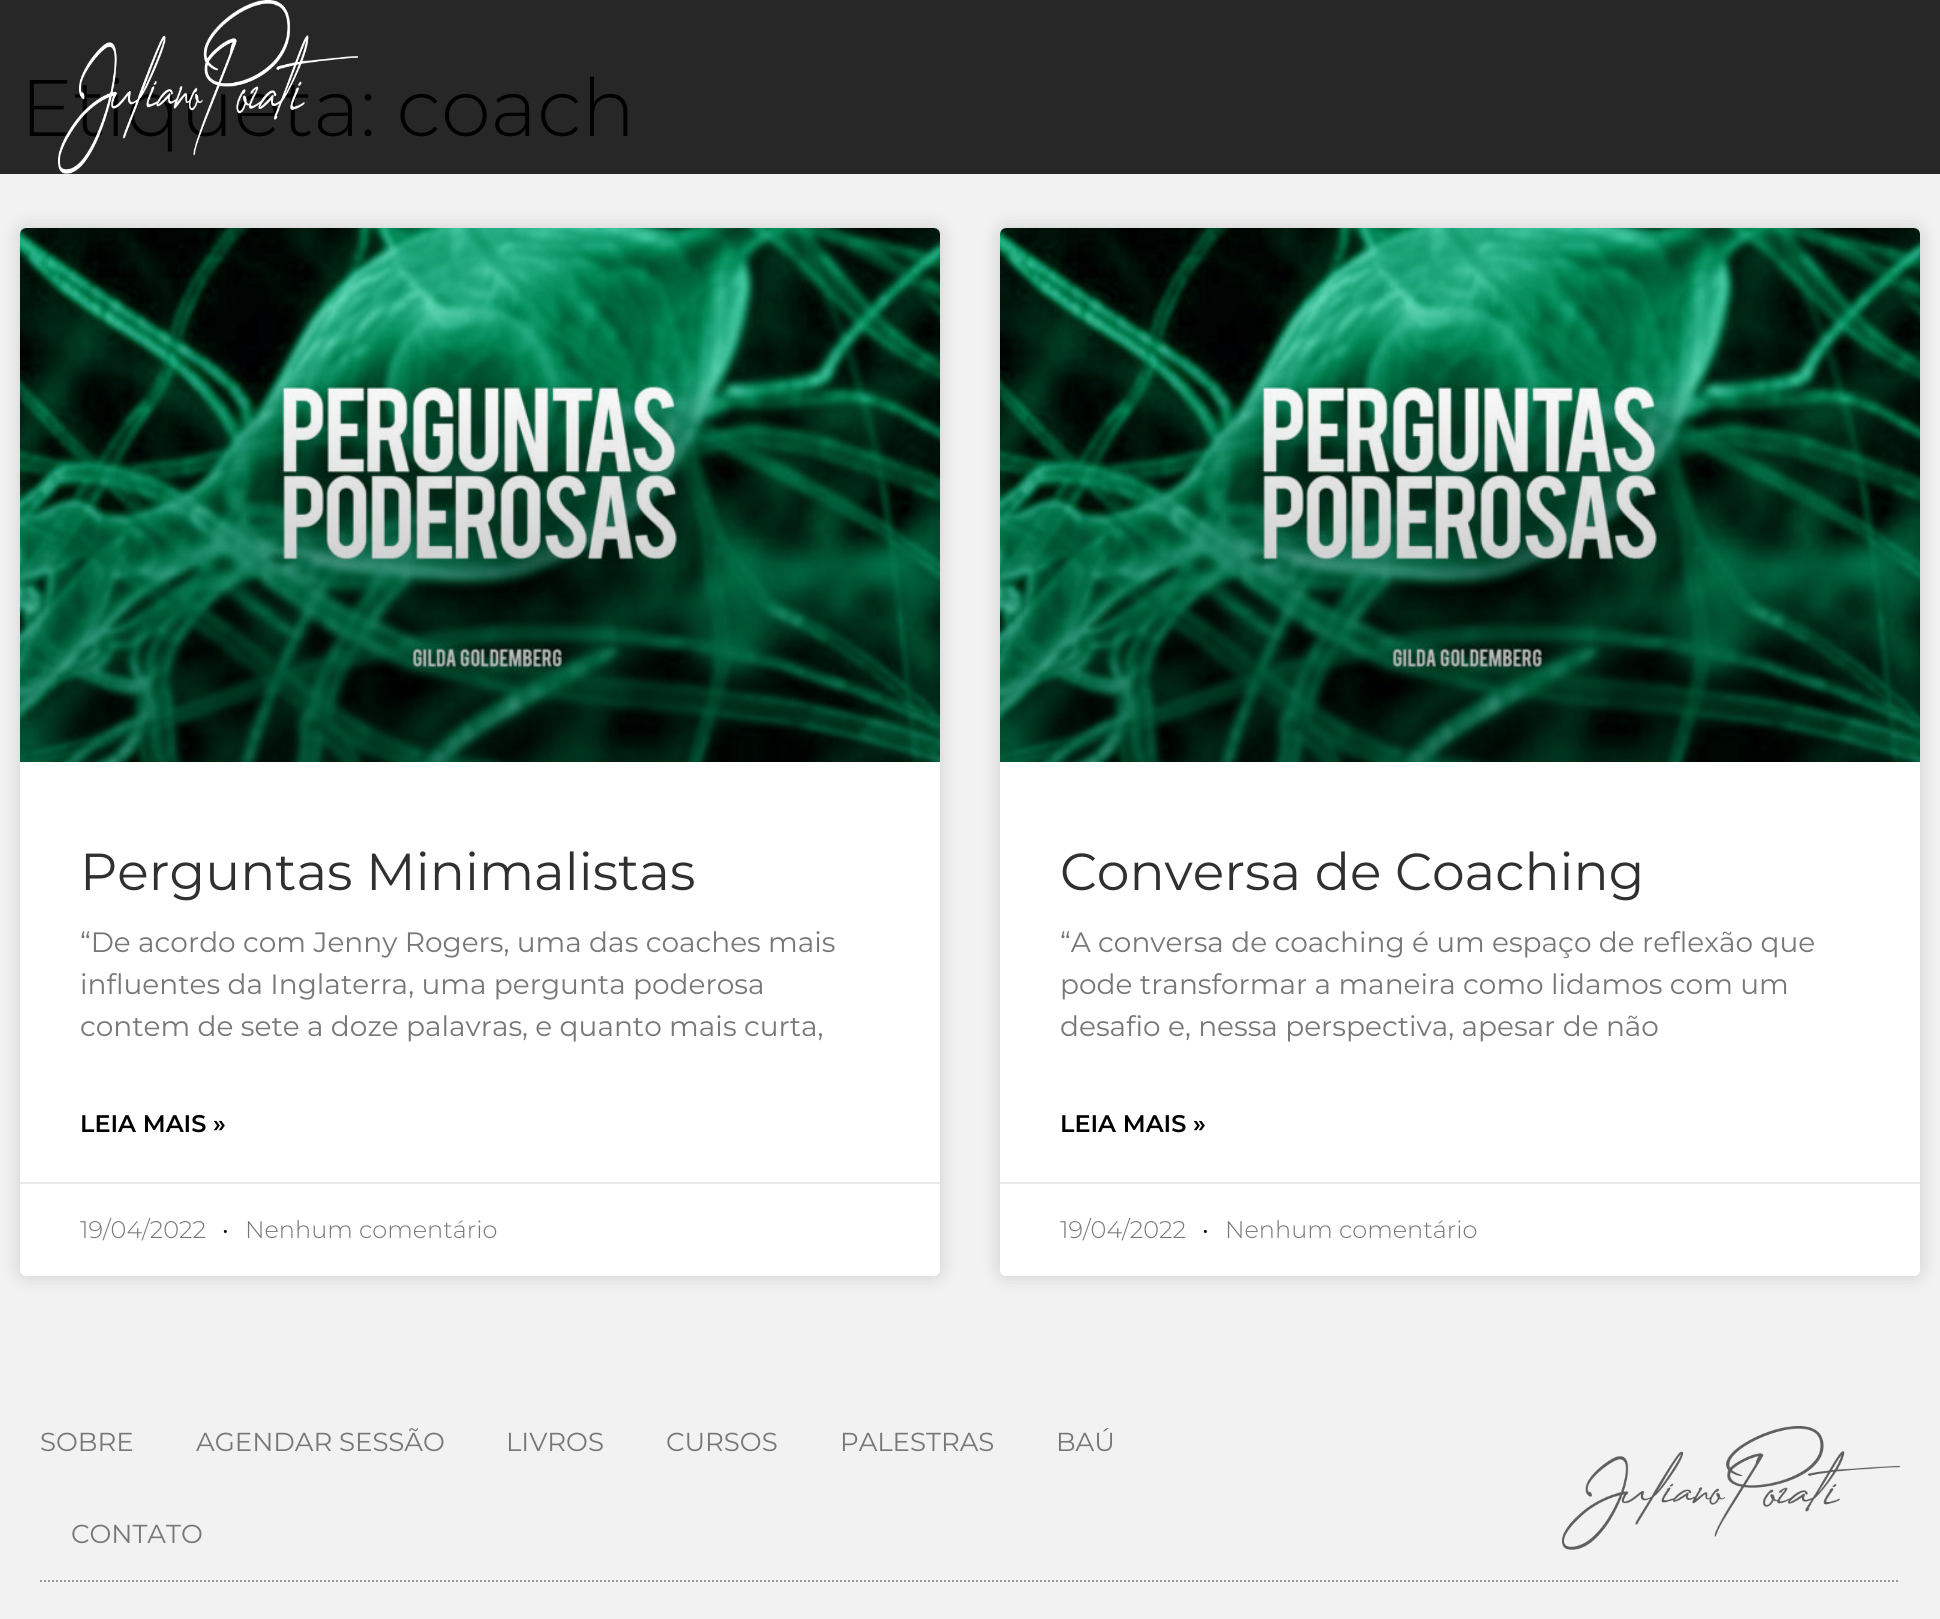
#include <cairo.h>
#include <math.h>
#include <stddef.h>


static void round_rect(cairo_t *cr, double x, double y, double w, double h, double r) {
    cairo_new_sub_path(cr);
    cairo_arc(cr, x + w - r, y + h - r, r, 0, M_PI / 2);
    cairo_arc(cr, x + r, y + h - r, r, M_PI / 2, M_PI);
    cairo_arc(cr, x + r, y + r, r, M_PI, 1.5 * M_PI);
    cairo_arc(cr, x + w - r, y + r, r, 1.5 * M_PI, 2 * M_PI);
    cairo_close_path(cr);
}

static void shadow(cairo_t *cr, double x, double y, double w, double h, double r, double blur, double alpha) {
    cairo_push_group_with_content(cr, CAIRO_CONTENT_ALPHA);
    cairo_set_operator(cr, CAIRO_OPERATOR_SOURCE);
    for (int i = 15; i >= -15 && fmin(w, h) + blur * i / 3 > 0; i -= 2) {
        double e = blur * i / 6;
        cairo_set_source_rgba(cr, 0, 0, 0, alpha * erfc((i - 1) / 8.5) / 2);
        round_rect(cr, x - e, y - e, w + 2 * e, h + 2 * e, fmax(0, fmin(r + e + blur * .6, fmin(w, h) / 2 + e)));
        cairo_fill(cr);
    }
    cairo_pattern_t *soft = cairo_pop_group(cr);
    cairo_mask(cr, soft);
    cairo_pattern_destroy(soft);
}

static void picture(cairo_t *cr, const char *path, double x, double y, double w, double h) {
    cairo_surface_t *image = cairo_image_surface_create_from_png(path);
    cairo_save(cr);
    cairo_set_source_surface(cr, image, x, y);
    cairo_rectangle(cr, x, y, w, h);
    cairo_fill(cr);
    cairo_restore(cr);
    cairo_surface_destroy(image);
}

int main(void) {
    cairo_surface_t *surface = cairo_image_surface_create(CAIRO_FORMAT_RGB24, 1940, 1619);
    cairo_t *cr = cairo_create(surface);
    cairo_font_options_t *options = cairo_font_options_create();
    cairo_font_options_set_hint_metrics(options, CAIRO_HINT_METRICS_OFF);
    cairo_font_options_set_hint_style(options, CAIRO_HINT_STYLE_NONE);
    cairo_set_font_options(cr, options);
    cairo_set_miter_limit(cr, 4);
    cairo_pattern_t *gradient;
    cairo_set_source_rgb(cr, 0.949, 0.949, 0.949);
    cairo_paint(cr);
    cairo_set_source_rgb(cr, 0.153, 0.153, 0.153);
    cairo_rectangle(cr, 0, 0, 1940, 174);
    cairo_fill(cr);
    cairo_select_font_face(cr, "Montserrat Light", CAIRO_FONT_SLANT_NORMAL, CAIRO_FONT_WEIGHT_NORMAL);
    cairo_set_font_size(cr, 80);
    cairo_set_source_rgb(cr, 0, 0, 0);
    cairo_move_to(cr, 20, 136);
    cairo_show_text(cr, "Etiqueta: coach");
    picture(cr, "img1.png", 58, 0, 300, 174);
    cairo_set_source_rgb(cr, 0, 0, 0);
    shadow(cr, 20, 228, 920, 1048, 6, 10, 0.15);
    cairo_set_source_rgb(cr, 1, 1, 1);
    round_rect(cr, 20, 228, 920, 1048, 6);
    cairo_fill(cr);
    picture(cr, "img2.png", 20, 228, 920, 534);
    gradient = cairo_pattern_create_linear(480, 762, 480, 228);
    cairo_pattern_add_color_stop_rgba(gradient, 0, 0, 0, 0, 0.35);
    cairo_pattern_add_color_stop_rgba(gradient, 0.75, 0, 0, 0, 0);
    cairo_set_source(cr, gradient);
    cairo_pattern_destroy(gradient);
    cairo_rectangle(cr, 20, 386, 920, 376);
    cairo_fill(cr);
    cairo_select_font_face(cr, "Montserrat", CAIRO_FONT_SLANT_NORMAL, CAIRO_FONT_WEIGHT_NORMAL);
    cairo_set_font_size(cr, 52);
    cairo_set_source_rgb(cr, 0.188, 0.188, 0.188);
    cairo_move_to(cr, 80, 890);
    cairo_show_text(cr, "Perguntas Minimalistas");
    cairo_set_font_size(cr, 28);
    cairo_set_source_rgb(cr, 0.467, 0.467, 0.467);
    cairo_move_to(cr, 80, 952);
    cairo_show_text(cr, "“De acordo com Jenny Rogers, uma das coaches mais");
    cairo_move_to(cr, 80, 994);
    cairo_show_text(cr, "influentes da Inglaterra, uma pergunta poderosa");
    cairo_move_to(cr, 80, 1036);
    cairo_show_text(cr, "contem de sete a doze palavras, e quanto mais curta,");
    cairo_select_font_face(cr, "Montserrat SemiBold", CAIRO_FONT_SLANT_NORMAL, CAIRO_FONT_WEIGHT_NORMAL);
    cairo_set_font_size(cr, 24);
    cairo_set_source_rgb(cr, 0, 0, 0);
    cairo_move_to(cr, 80, 1132);
    cairo_show_text(cr, "LEIA MAIS »");
    cairo_set_source_rgb(cr, 0.918, 0.918, 0.918);
    cairo_rectangle(cr, 20, 1182, 920, 2);
    cairo_fill(cr);
    cairo_select_font_face(cr, "Montserrat Light", CAIRO_FONT_SLANT_NORMAL, CAIRO_FONT_WEIGHT_NORMAL);
    cairo_set_source_rgb(cr, 0.467, 0.467, 0.467);
    cairo_move_to(cr, 80, 1238);
    cairo_show_text(cr, "19/04/2022");
    cairo_set_source_rgb(cr, 0, 0, 0);
    cairo_move_to(cr, 222, 1238);
    cairo_show_text(cr, "•");
    cairo_set_source_rgb(cr, 0.467, 0.467, 0.467);
    cairo_move_to(cr, 245, 1238);
    cairo_show_text(cr, "Nenhum comentário");
    cairo_set_source_rgb(cr, 0, 0, 0);
    shadow(cr, 1000, 228, 920, 1048, 6, 10, 0.15);
    cairo_set_source_rgb(cr, 1, 1, 1);
    round_rect(cr, 1000, 228, 920, 1048, 6);
    cairo_fill(cr);
    picture(cr, "img2.png", 1000, 228, 920, 534);
    gradient = cairo_pattern_create_linear(1460, 762, 1460, 228);
    cairo_pattern_add_color_stop_rgba(gradient, 0, 0, 0, 0, 0.35);
    cairo_pattern_add_color_stop_rgba(gradient, 0.75, 0, 0, 0, 0);
    cairo_set_source(cr, gradient);
    cairo_pattern_destroy(gradient);
    cairo_rectangle(cr, 1000, 386, 920, 376);
    cairo_fill(cr);
    cairo_select_font_face(cr, "Montserrat", CAIRO_FONT_SLANT_NORMAL, CAIRO_FONT_WEIGHT_NORMAL);
    cairo_set_font_size(cr, 52);
    cairo_set_source_rgb(cr, 0.188, 0.188, 0.188);
    cairo_move_to(cr, 1060, 890);
    cairo_show_text(cr, "Conversa de Coaching");
    cairo_set_font_size(cr, 28);
    cairo_set_source_rgb(cr, 0.467, 0.467, 0.467);
    cairo_move_to(cr, 1060, 952);
    cairo_show_text(cr, "“A conversa de coaching é um espaço de reflexão que");
    cairo_move_to(cr, 1060, 994);
    cairo_show_text(cr, "pode transformar a maneira como lidamos com um");
    cairo_move_to(cr, 1060, 1036);
    cairo_show_text(cr, "desafio e, nessa perspectiva, apesar de não");
    cairo_select_font_face(cr, "Montserrat SemiBold", CAIRO_FONT_SLANT_NORMAL, CAIRO_FONT_WEIGHT_NORMAL);
    cairo_set_font_size(cr, 24);
    cairo_set_source_rgb(cr, 0, 0, 0);
    cairo_move_to(cr, 1060, 1132);
    cairo_show_text(cr, "LEIA MAIS »");
    cairo_set_source_rgb(cr, 0.918, 0.918, 0.918);
    cairo_rectangle(cr, 1000, 1182, 920, 2);
    cairo_fill(cr);
    cairo_select_font_face(cr, "Montserrat Light", CAIRO_FONT_SLANT_NORMAL, CAIRO_FONT_WEIGHT_NORMAL);
    cairo_set_source_rgb(cr, 0.467, 0.467, 0.467);
    cairo_move_to(cr, 1060, 1238);
    cairo_show_text(cr, "19/04/2022");
    cairo_set_source_rgb(cr, 0, 0, 0);
    cairo_move_to(cr, 1202, 1238);
    cairo_show_text(cr, "•");
    cairo_set_source_rgb(cr, 0.467, 0.467, 0.467);
    cairo_move_to(cr, 1225, 1238);
    cairo_show_text(cr, "Nenhum comentário");
    cairo_new_path(cr);
    cairo_move_to(cr, 40, 1581);
    cairo_line_to(cr, 1900, 1581);
    cairo_set_source_rgb(cr, 0.608, 0.608, 0.608);
    cairo_set_dash(cr, (double[]){2, 2}, 2, 0);
    cairo_stroke(cr);
    cairo_select_font_face(cr, "Montserrat", CAIRO_FONT_SLANT_NORMAL, CAIRO_FONT_WEIGHT_NORMAL);
    cairo_set_font_size(cr, 26);
    cairo_set_source_rgb(cr, 0.467, 0.467, 0.467);
    cairo_move_to(cr, 40, 1451);
    cairo_show_text(cr, "SOBRE");
    cairo_move_to(cr, 196, 1451);
    cairo_show_text(cr, "AGENDAR SESSÃO");
    cairo_move_to(cr, 506, 1451);
    cairo_show_text(cr, "LIVROS");
    cairo_move_to(cr, 666, 1451);
    cairo_show_text(cr, "CURSOS");
    cairo_move_to(cr, 840, 1451);
    cairo_show_text(cr, "PALESTRAS");
    cairo_move_to(cr, 1056, 1451);
    cairo_show_text(cr, "BAÚ");
    cairo_move_to(cr, 71, 1543);
    cairo_show_text(cr, "CONTATO");
    picture(cr, "img3.png", 1562, 1426, 338, 124);
    cairo_surface_write_to_png(surface, "page.png");
    cairo_font_options_destroy(options);
    cairo_destroy(cr);
    cairo_surface_destroy(surface);
    return 0;
}
